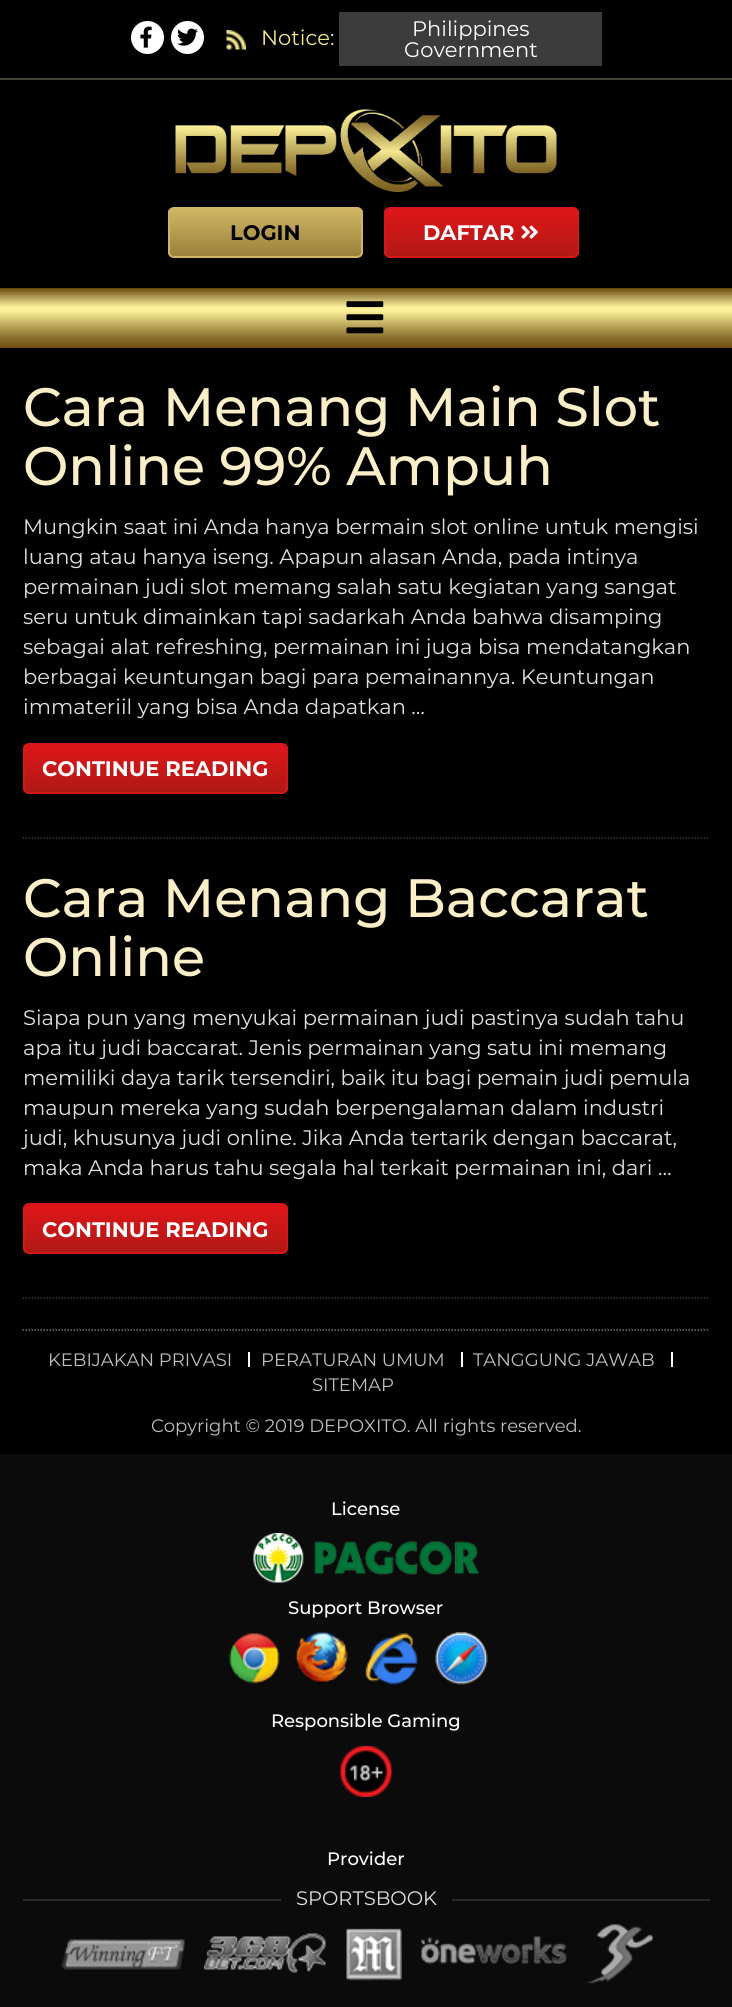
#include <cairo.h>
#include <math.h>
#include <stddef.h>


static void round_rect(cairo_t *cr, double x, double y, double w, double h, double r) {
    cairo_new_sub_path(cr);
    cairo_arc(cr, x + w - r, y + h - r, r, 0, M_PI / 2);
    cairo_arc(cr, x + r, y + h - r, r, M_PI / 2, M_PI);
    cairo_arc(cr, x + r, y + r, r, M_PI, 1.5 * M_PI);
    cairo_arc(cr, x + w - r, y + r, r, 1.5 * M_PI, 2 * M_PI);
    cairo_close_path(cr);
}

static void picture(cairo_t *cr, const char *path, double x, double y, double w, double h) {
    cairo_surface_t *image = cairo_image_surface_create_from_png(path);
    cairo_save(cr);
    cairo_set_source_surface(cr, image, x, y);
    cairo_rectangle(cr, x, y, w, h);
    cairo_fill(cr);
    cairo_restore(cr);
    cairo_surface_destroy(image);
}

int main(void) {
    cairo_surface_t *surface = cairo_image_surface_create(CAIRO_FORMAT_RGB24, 732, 2007);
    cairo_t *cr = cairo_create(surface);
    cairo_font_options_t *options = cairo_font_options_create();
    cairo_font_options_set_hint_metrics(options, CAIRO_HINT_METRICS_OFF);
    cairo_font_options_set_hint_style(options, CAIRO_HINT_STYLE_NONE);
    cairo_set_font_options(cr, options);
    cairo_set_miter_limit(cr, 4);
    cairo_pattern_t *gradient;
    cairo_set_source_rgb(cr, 0, 0, 0);
    cairo_paint(cr);
    cairo_set_source_rgb(cr, 0.255, 0.251, 0.196);
    cairo_rectangle(cr, 0, 78, 732, 2);
    cairo_fill(cr);
    cairo_set_source_rgb(cr, 1, 1, 1);
    cairo_arc(cr, 147.5, 37.5, 16.5, 0, 2 * M_PI);
    cairo_fill(cr);
    picture(cr, "img1.png", 140, 26, 12, 22);
    cairo_arc(cr, 187.5, 37.5, 16.5, 0, 2 * M_PI);
    cairo_fill(cr);
    picture(cr, "img2.png", 177, 28, 21, 18);
    picture(cr, "img3.png", 226, 30, 20, 20);
    cairo_select_font_face(cr, "Montserrat", CAIRO_FONT_SLANT_NORMAL, CAIRO_FONT_WEIGHT_NORMAL);
    cairo_set_font_size(cr, 21);
    cairo_set_source_rgb(cr, 0.949, 0.91, 0.561);
    cairo_move_to(cr, 261, 45);
    cairo_show_text(cr, "Notice:");
    cairo_set_source_rgb(cr, 0.235, 0.235, 0.235);
    cairo_rectangle(cr, 339, 12, 263, 54);
    cairo_fill(cr);
    cairo_set_source_rgb(cr, 1, 1, 1);
    cairo_move_to(cr, 412, 36);
    cairo_show_text(cr, "Philippines");
    cairo_move_to(cr, 404, 57);
    cairo_show_text(cr, "Government");
    picture(cr, "img4.png", 175, 109, 382, 83);
    cairo_save(cr);
    round_rect(cr, 168, 207, 195, 51, 6);
    cairo_clip(cr);
    gradient = cairo_pattern_create_linear(266, 209, 266, 257);
    cairo_pattern_add_color_stop_rgba(gradient, 0, 0.812, 0.714, 0.396, 1);
    cairo_pattern_add_color_stop_rgba(gradient, 1, 0.596, 0.502, 0.227, 1);
    cairo_set_source(cr, gradient);
    cairo_pattern_destroy(gradient);
    cairo_rectangle(cr, 168, 209, 195, 48);
    cairo_fill(cr);
    cairo_restore(cr);
    round_rect(cr, 169, 208, 193, 49, 5);
    cairo_set_source_rgb(cr, 0.812, 0.714, 0.396);
    cairo_stroke(cr);
    cairo_select_font_face(cr, "Montserrat", CAIRO_FONT_SLANT_NORMAL, CAIRO_FONT_WEIGHT_BOLD);
    cairo_set_source_rgb(cr, 0, 0, 0);
    cairo_move_to(cr, 230, 240);
    cairo_show_text(cr, "LOGIN");
    cairo_save(cr);
    round_rect(cr, 384, 207, 195, 51, 6);
    cairo_clip(cr);
    gradient = cairo_pattern_create_linear(482, 209, 482, 257);
    cairo_pattern_add_color_stop_rgba(gradient, 0, 0.878, 0.086, 0.098, 1);
    cairo_pattern_add_color_stop_rgba(gradient, 1, 0.686, 0.098, 0.086, 1);
    cairo_set_source(cr, gradient);
    cairo_pattern_destroy(gradient);
    cairo_rectangle(cr, 384, 209, 195, 48);
    cairo_fill(cr);
    cairo_restore(cr);
    round_rect(cr, 385, 208, 193, 49, 5);
    cairo_set_source_rgb(cr, 0.839, 0.09, 0.098);
    cairo_stroke(cr);
    cairo_set_source_rgb(cr, 1, 1, 1);
    cairo_move_to(cr, 423, 240);
    cairo_show_text(cr, "DAFTAR");
    picture(cr, "img5.png", 521, 225, 17, 14);
    picture(cr, "img6.png", 0, 288, 732, 60);
    picture(cr, "img7.png", 346, 301, 38, 33);
    cairo_new_path(cr);
    cairo_move_to(cr, 22.5, 838);
    cairo_line_to(cr, 709.5, 838);
    cairo_set_source_rgb(cr, 0.22, 0.22, 0.22);
    cairo_set_line_width(cr, 1.5);
    cairo_set_dash(cr, (double[]){1.5, 1.5}, 2, 0);
    cairo_stroke(cr);
    cairo_select_font_face(cr, "Montserrat Medium", CAIRO_FONT_SLANT_NORMAL, CAIRO_FONT_WEIGHT_NORMAL);
    cairo_set_font_size(cr, 54);
    cairo_set_source_rgb(cr, 0.984, 0.937, 0.78);
    cairo_move_to(cr, 23, 426);
    cairo_show_text(cr, "Cara Menang Main Slot");
    cairo_move_to(cr, 23, 485);
    cairo_show_text(cr, "Online 99% Ampuh");
    cairo_select_font_face(cr, "Montserrat", CAIRO_FONT_SLANT_NORMAL, CAIRO_FONT_WEIGHT_NORMAL);
    cairo_set_font_size(cr, 21);
    cairo_set_source_rgb(cr, 0.878, 0.878, 0.878);
    cairo_move_to(cr, 23, 534);
    cairo_show_text(cr, "Mungkin saat ini Anda hanya bermain slot online untuk mengisi");
    cairo_move_to(cr, 23, 564);
    cairo_show_text(cr, "luang atau hanya iseng. Apapun alasan Anda, pada intinya");
    cairo_move_to(cr, 23, 594);
    cairo_show_text(cr, "permainan judi slot memang salah satu kegiatan yang sangat");
    cairo_move_to(cr, 23, 624);
    cairo_show_text(cr, "seru untuk dimainkan tapi sadarkah Anda bahwa disamping");
    cairo_move_to(cr, 23, 654);
    cairo_show_text(cr, "sebagai alat refreshing, permainan ini juga bisa mendatangkan");
    cairo_move_to(cr, 23, 684);
    cairo_show_text(cr, "berbagai keuntungan bagi para pemainannya. Keuntungan");
    cairo_move_to(cr, 23, 714);
    cairo_show_text(cr, "immateriil yang bisa Anda dapatkan …");
    cairo_save(cr);
    round_rect(cr, 23, 743, 265, 51, 6);
    cairo_clip(cr);
    gradient = cairo_pattern_create_linear(155, 744, 155, 792);
    cairo_pattern_add_color_stop_rgba(gradient, 0, 0.878, 0.086, 0.098, 1);
    cairo_pattern_add_color_stop_rgba(gradient, 1, 0.686, 0.098, 0.086, 1);
    cairo_set_source(cr, gradient);
    cairo_pattern_destroy(gradient);
    cairo_rectangle(cr, 23, 744, 265, 48);
    cairo_fill(cr);
    cairo_restore(cr);
    round_rect(cr, 24, 744, 263, 49, 5);
    cairo_set_source_rgb(cr, 0.839, 0.09, 0.098);
    cairo_set_line_width(cr, 2);
    cairo_set_dash(cr, NULL, 0, 0);
    cairo_stroke(cr);
    cairo_select_font_face(cr, "Montserrat", CAIRO_FONT_SLANT_NORMAL, CAIRO_FONT_WEIGHT_BOLD);
    cairo_set_source_rgb(cr, 1, 1, 1);
    cairo_move_to(cr, 42, 776);
    cairo_show_text(cr, "CONTINUE READING");
    cairo_new_path(cr);
    cairo_move_to(cr, 22.5, 1298);
    cairo_line_to(cr, 709.5, 1298);
    cairo_set_source_rgb(cr, 0.22, 0.22, 0.22);
    cairo_set_line_width(cr, 1.5);
    cairo_set_dash(cr, (double[]){1.5, 1.5}, 2, 0);
    cairo_stroke(cr);
    cairo_select_font_face(cr, "Montserrat Medium", CAIRO_FONT_SLANT_NORMAL, CAIRO_FONT_WEIGHT_NORMAL);
    cairo_set_font_size(cr, 54);
    cairo_set_source_rgb(cr, 0.984, 0.937, 0.78);
    cairo_move_to(cr, 23, 917);
    cairo_show_text(cr, "Cara Menang Baccarat");
    cairo_move_to(cr, 23, 976);
    cairo_show_text(cr, "Online");
    cairo_select_font_face(cr, "Montserrat", CAIRO_FONT_SLANT_NORMAL, CAIRO_FONT_WEIGHT_NORMAL);
    cairo_set_font_size(cr, 21);
    cairo_set_source_rgb(cr, 0.878, 0.878, 0.878);
    cairo_move_to(cr, 23, 1025);
    cairo_show_text(cr, "Siapa pun yang menyukai permainan judi pastinya sudah tahu");
    cairo_move_to(cr, 23, 1055);
    cairo_show_text(cr, "apa itu judi baccarat. Jenis permainan yang satu ini memang");
    cairo_move_to(cr, 23, 1085);
    cairo_show_text(cr, "memiliki daya tarik tersendiri, baik itu bagi pemain judi pemula");
    cairo_move_to(cr, 23, 1115);
    cairo_show_text(cr, "maupun mereka yang sudah berpengalaman dalam industri");
    cairo_move_to(cr, 23, 1145);
    cairo_show_text(cr, "judi, khusunya judi online. Jika Anda tertarik dengan baccarat,");
    cairo_move_to(cr, 23, 1175);
    cairo_show_text(cr, "maka Anda harus tahu segala hal terkait permainan ini, dari …");
    cairo_save(cr);
    round_rect(cr, 23, 1203, 265, 51, 6);
    cairo_clip(cr);
    gradient = cairo_pattern_create_linear(155, 1205, 155, 1253);
    cairo_pattern_add_color_stop_rgba(gradient, 0, 0.878, 0.086, 0.098, 1);
    cairo_pattern_add_color_stop_rgba(gradient, 1, 0.686, 0.098, 0.086, 1);
    cairo_set_source(cr, gradient);
    cairo_pattern_destroy(gradient);
    cairo_rectangle(cr, 23, 1205, 265, 48);
    cairo_fill(cr);
    cairo_restore(cr);
    round_rect(cr, 24, 1204, 263, 49, 5);
    cairo_set_source_rgb(cr, 0.839, 0.09, 0.098);
    cairo_set_line_width(cr, 2);
    cairo_set_dash(cr, NULL, 0, 0);
    cairo_stroke(cr);
    cairo_select_font_face(cr, "Montserrat", CAIRO_FONT_SLANT_NORMAL, CAIRO_FONT_WEIGHT_BOLD);
    cairo_set_source_rgb(cr, 1, 1, 1);
    cairo_move_to(cr, 42, 1237);
    cairo_show_text(cr, "CONTINUE READING");
    cairo_new_path(cr);
    cairo_move_to(cr, 22.5, 1330);
    cairo_line_to(cr, 709.5, 1330);
    cairo_set_source_rgb(cr, 0.447, 0.447, 0.447);
    cairo_set_line_width(cr, 1.5);
    cairo_set_dash(cr, (double[]){1.5, 1.5}, 2, 0);
    cairo_stroke(cr);
    cairo_set_source_rgb(cr, 1, 1, 1);
    cairo_rectangle(cr, 248, 1352, 2, 15);
    cairo_fill(cr);
    cairo_select_font_face(cr, "Montserrat", CAIRO_FONT_SLANT_NORMAL, CAIRO_FONT_WEIGHT_NORMAL);
    cairo_set_font_size(cr, 18);
    cairo_set_source_rgb(cr, 0.749, 0.749, 0.749);
    cairo_move_to(cr, 48, 1366);
    cairo_show_text(cr, "KEBIJAKAN PRIVASI");
    cairo_set_source_rgb(cr, 1, 1, 1);
    cairo_rectangle(cr, 461, 1352, 2, 15);
    cairo_fill(cr);
    cairo_set_source_rgb(cr, 0.749, 0.749, 0.749);
    cairo_move_to(cr, 261, 1366);
    cairo_show_text(cr, "PERATURAN UMUM");
    cairo_set_source_rgb(cr, 1, 1, 1);
    cairo_rectangle(cr, 671, 1352, 2, 15);
    cairo_fill(cr);
    cairo_set_source_rgb(cr, 0.749, 0.749, 0.749);
    cairo_move_to(cr, 473, 1366);
    cairo_show_text(cr, "TANGGUNG JAWAB");
    cairo_move_to(cr, 312, 1391);
    cairo_show_text(cr, "SITEMAP");
    cairo_move_to(cr, 151, 1432);
    cairo_show_text(cr, "Copyright © 2019 DEPOXITO. All rights reserved.");
    cairo_set_source_rgb(cr, 0.043, 0.043, 0.043);
    cairo_rectangle(cr, 0, 1454, 732, 553);
    cairo_fill(cr);
    cairo_select_font_face(cr, "Montserrat Medium", CAIRO_FONT_SLANT_NORMAL, CAIRO_FONT_WEIGHT_NORMAL);
    cairo_set_source_rgb(cr, 1, 1, 1);
    cairo_move_to(cr, 331, 1515);
    cairo_show_text(cr, "License");
    picture(cr, "img8.png", 253, 1533, 226, 50);
    cairo_move_to(cr, 288, 1614);
    cairo_show_text(cr, "Support Browser");
    picture(cr, "img9.png", 229, 1633, 51, 51);
    picture(cr, "img10.png", 295, 1632, 54, 52);
    picture(cr, "img11.png", 365, 1633, 53, 52);
    picture(cr, "img12.png", 434, 1632, 54, 54);
    cairo_move_to(cr, 271, 1727);
    cairo_show_text(cr, "Responsible Gaming");
    picture(cr, "img13.png", 340, 1746, 52, 51);
    cairo_move_to(cr, 327, 1865);
    cairo_show_text(cr, "Provider");
    cairo_set_source_rgb(cr, 0.165, 0.165, 0.165);
    cairo_rectangle(cr, 23, 1899, 687, 2);
    cairo_fill(cr);
    cairo_set_source_rgb(cr, 0.043, 0.043, 0.043);
    cairo_rectangle(cr, 281, 1899, 171, 2);
    cairo_fill(cr);
    cairo_select_font_face(cr, "Montserrat", CAIRO_FONT_SLANT_NORMAL, CAIRO_FONT_WEIGHT_NORMAL);
    cairo_set_font_size(cr, 19.5);
    cairo_set_source_rgb(cr, 0.878, 0.878, 0.878);
    cairo_move_to(cr, 296, 1905);
    cairo_show_text(cr, "SPORTSBOOK");
    picture(cr, "img14.png", 61, 1939, 124, 31);
    picture(cr, "img15.png", 204, 1933, 122, 40);
    picture(cr, "img16.png", 346, 1928, 56, 53);
    picture(cr, "img17.png", 421, 1936, 146, 28);
    picture(cr, "img18.png", 586, 1924, 67, 60);
    cairo_surface_write_to_png(surface, "page.png");
    cairo_font_options_destroy(options);
    cairo_destroy(cr);
    cairo_surface_destroy(surface);
    return 0;
}
